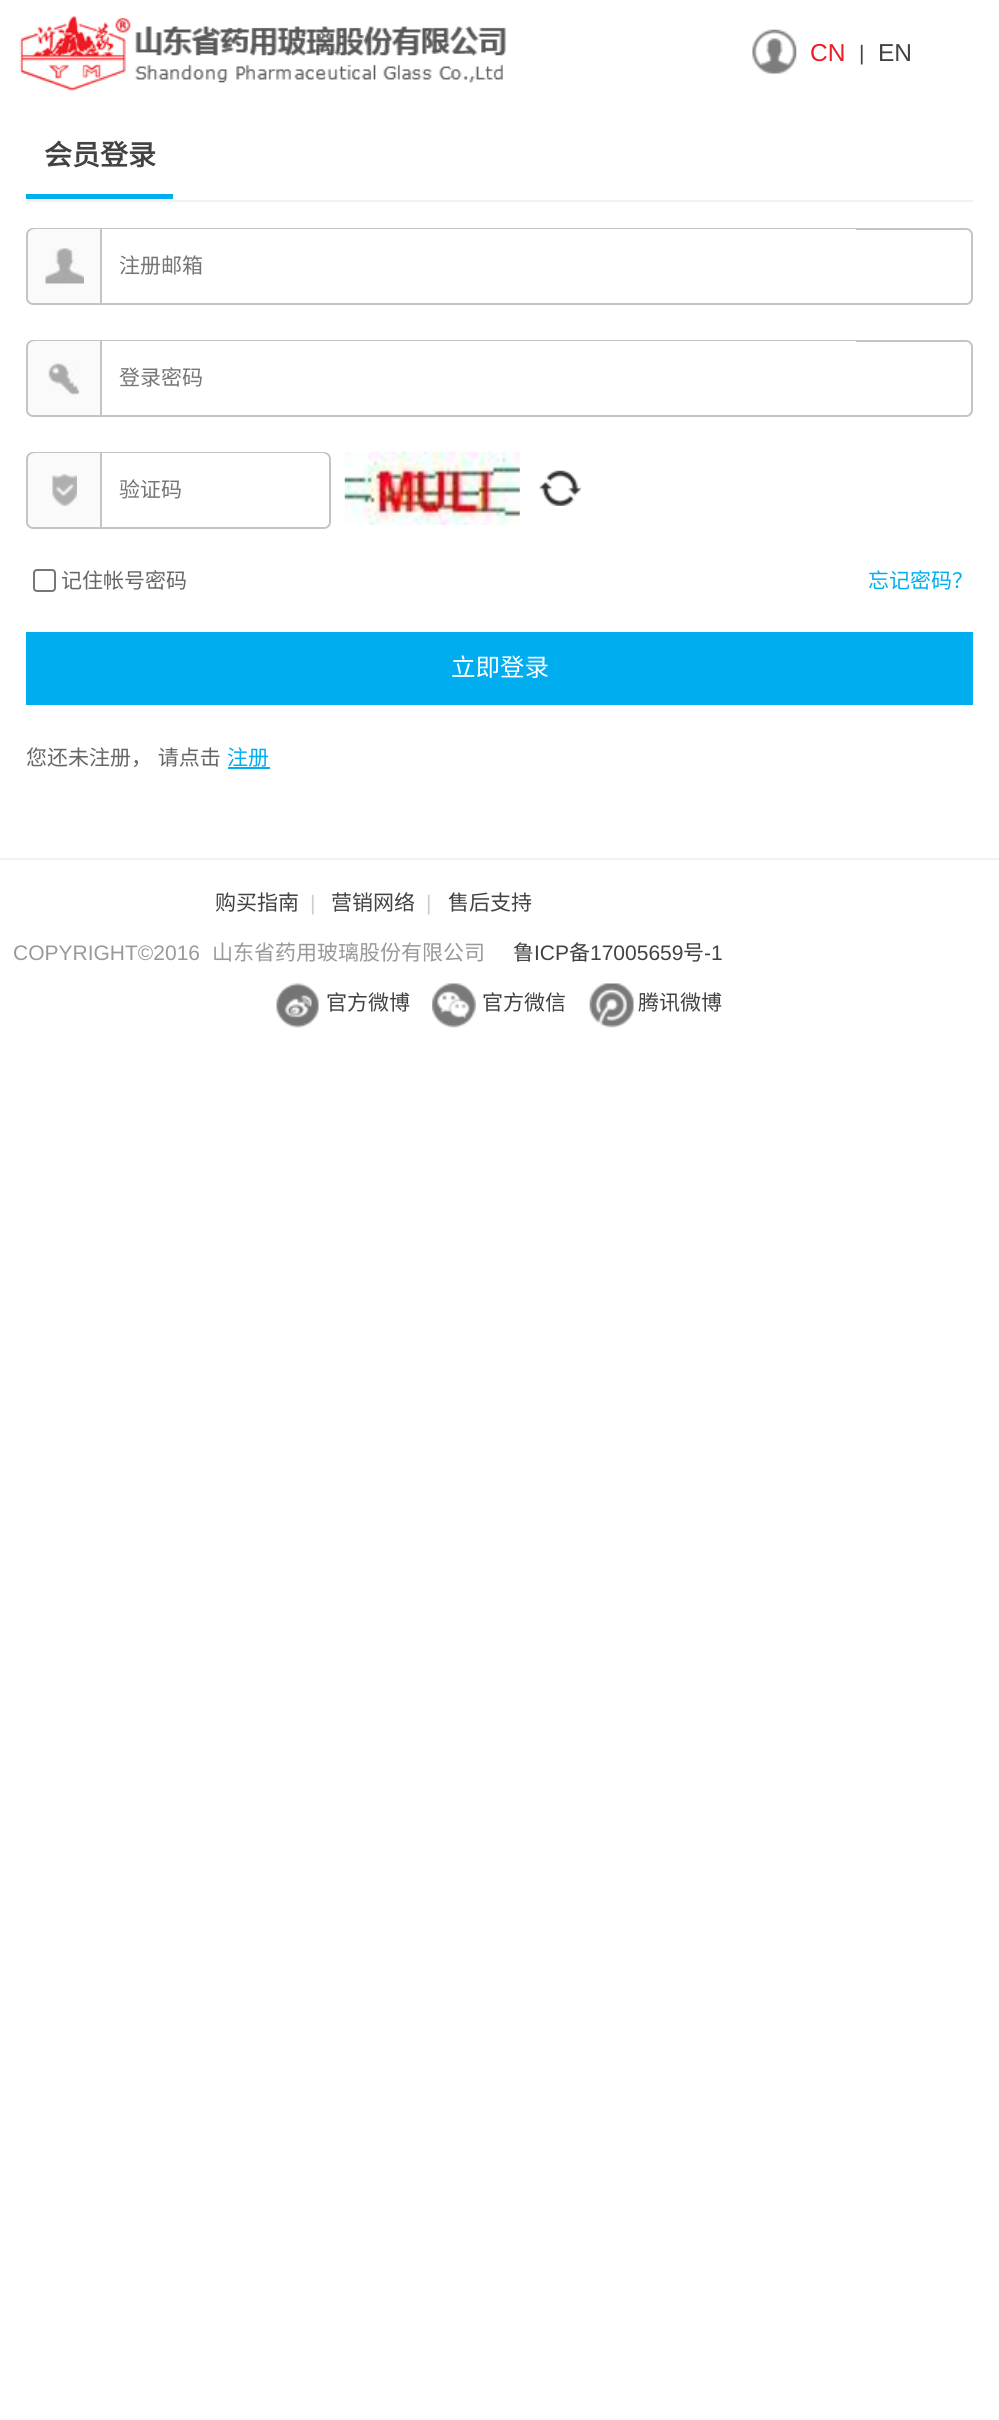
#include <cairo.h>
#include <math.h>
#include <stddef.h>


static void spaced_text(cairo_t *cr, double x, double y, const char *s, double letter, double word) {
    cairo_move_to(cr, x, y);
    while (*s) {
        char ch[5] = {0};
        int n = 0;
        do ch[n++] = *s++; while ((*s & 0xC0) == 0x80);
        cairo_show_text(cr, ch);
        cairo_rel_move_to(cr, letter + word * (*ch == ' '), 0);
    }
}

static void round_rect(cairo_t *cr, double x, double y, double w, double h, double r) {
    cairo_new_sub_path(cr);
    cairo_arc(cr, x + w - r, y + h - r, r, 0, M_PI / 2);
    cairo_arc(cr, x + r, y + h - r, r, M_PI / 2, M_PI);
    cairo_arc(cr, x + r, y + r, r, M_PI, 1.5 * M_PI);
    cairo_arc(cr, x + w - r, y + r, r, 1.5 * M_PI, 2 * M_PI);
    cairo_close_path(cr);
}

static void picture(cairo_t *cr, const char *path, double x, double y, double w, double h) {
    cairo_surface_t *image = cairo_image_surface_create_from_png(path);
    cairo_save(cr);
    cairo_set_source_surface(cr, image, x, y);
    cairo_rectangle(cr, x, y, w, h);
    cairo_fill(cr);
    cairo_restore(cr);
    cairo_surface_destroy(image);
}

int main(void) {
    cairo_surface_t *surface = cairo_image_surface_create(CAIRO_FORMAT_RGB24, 999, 2420);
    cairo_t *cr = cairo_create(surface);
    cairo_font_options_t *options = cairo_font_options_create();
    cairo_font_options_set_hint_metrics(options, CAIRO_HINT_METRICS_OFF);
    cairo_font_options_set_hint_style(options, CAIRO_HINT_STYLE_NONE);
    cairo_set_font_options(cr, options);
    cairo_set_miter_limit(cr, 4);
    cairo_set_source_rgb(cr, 1, 1, 1);
    cairo_paint(cr);
    picture(cr, "img1.png", 19, 16, 487, 75);
    picture(cr, "img2.png", 752, 29, 45, 45);
    cairo_select_font_face(cr, "Liberation Sans", CAIRO_FONT_SLANT_NORMAL, CAIRO_FONT_WEIGHT_NORMAL);
    cairo_set_font_size(cr, 24.5);
    cairo_set_source_rgb(cr, 0.929, 0.106, 0.141);
    cairo_move_to(cr, 810, 61);
    cairo_show_text(cr, "CN");
    cairo_set_font_size(cr, 21);
    cairo_set_source_rgb(cr, 0.259, 0.259, 0.259);
    cairo_move_to(cr, 859, 60);
    cairo_show_text(cr, "|");
    cairo_set_font_size(cr, 24.5);
    cairo_move_to(cr, 878, 61);
    cairo_show_text(cr, "EN");
    cairo_set_source_rgb(cr, 0.945, 0.945, 0.945);
    cairo_rectangle(cr, 26, 200, 947, 2);
    cairo_fill(cr);
    cairo_set_source_rgb(cr, 0, 0.678, 0.937);
    cairo_rectangle(cr, 26, 194, 147, 5);
    cairo_fill(cr);
    cairo_select_font_face(cr, "Noto Sans CJK SC", CAIRO_FONT_SLANT_NORMAL, CAIRO_FONT_WEIGHT_BOLD);
    cairo_set_font_size(cr, 28);
    cairo_set_source_rgb(cr, 0.259, 0.259, 0.259);
    cairo_move_to(cr, 44, 165);
    cairo_show_text(cr, "会员登录");
    round_rect(cr, 27, 229, 945, 75, 6);
    cairo_set_source_rgb(cr, 0.769, 0.769, 0.776);
    cairo_stroke(cr);
    cairo_set_source_rgb(cr, 0.98, 0.98, 0.98);
    cairo_new_path(cr);
    cairo_move_to(cr, 35, 229);
    cairo_line_to(cr, 102, 229);
    cairo_line_to(cr, 102, 303);
    cairo_line_to(cr, 35, 303);
    cairo_curve_to(cr, 31, 303, 28, 300, 28, 296);
    cairo_line_to(cr, 28, 236);
    cairo_curve_to(cr, 28, 232, 31, 229, 35, 229);
    cairo_close_path(cr);
    cairo_fill(cr);
    picture(cr, "img3.png", 45, 248, 39, 36);
    cairo_set_source_rgb(cr, 0.769, 0.769, 0.776);
    cairo_rectangle(cr, 100, 229, 2, 74);
    cairo_fill(cr);
    cairo_set_source_rgb(cr, 1, 1, 1);
    cairo_rectangle(cr, 102, 229, 754, 1);
    cairo_fill(cr);
    cairo_select_font_face(cr, "Noto Sans CJK SC", CAIRO_FONT_SLANT_NORMAL, CAIRO_FONT_WEIGHT_NORMAL);
    cairo_set_font_size(cr, 21);
    cairo_set_source_rgb(cr, 0.459, 0.459, 0.459);
    cairo_move_to(cr, 119, 273);
    cairo_show_text(cr, "注册邮箱");
    round_rect(cr, 27, 341, 945, 75, 6);
    cairo_set_source_rgb(cr, 0.769, 0.769, 0.776);
    cairo_stroke(cr);
    cairo_set_source_rgb(cr, 0.98, 0.98, 0.98);
    cairo_new_path(cr);
    cairo_move_to(cr, 35, 341);
    cairo_line_to(cr, 102, 341);
    cairo_line_to(cr, 102, 415);
    cairo_line_to(cr, 35, 415);
    cairo_curve_to(cr, 31, 415, 28, 412, 28, 408);
    cairo_line_to(cr, 28, 348);
    cairo_curve_to(cr, 28, 344, 31, 341, 35, 341);
    cairo_close_path(cr);
    cairo_fill(cr);
    picture(cr, "img4.png", 48, 363, 32, 32);
    cairo_set_source_rgb(cr, 0.769, 0.769, 0.776);
    cairo_rectangle(cr, 100, 341, 2, 74);
    cairo_fill(cr);
    cairo_set_source_rgb(cr, 1, 1, 1);
    cairo_rectangle(cr, 102, 341, 754, 1);
    cairo_fill(cr);
    cairo_set_source_rgb(cr, 0.459, 0.459, 0.459);
    cairo_move_to(cr, 119, 385);
    cairo_show_text(cr, "登录密码");
    round_rect(cr, 27, 453, 303, 75, 6);
    cairo_set_source_rgb(cr, 0.769, 0.769, 0.776);
    cairo_stroke(cr);
    cairo_set_source_rgb(cr, 0.98, 0.98, 0.98);
    cairo_new_path(cr);
    cairo_move_to(cr, 35, 453);
    cairo_line_to(cr, 102, 453);
    cairo_line_to(cr, 102, 527);
    cairo_line_to(cr, 35, 527);
    cairo_curve_to(cr, 31, 527, 28, 524, 28, 520);
    cairo_line_to(cr, 28, 460);
    cairo_curve_to(cr, 28, 456, 31, 453, 35, 453);
    cairo_close_path(cr);
    cairo_fill(cr);
    picture(cr, "img5.png", 52, 474, 25, 32);
    cairo_set_source_rgb(cr, 0.769, 0.769, 0.776);
    cairo_rectangle(cr, 100, 453, 2, 74);
    cairo_fill(cr);
    cairo_set_source_rgb(cr, 1, 1, 1);
    cairo_new_path(cr);
    cairo_move_to(cr, 102, 453);
    cairo_line_to(cr, 322, 453);
    cairo_curve_to(cr, 326, 453, 329, 456, 329, 460);
    cairo_line_to(cr, 329, 520);
    cairo_curve_to(cr, 329, 524, 326, 527, 322, 527);
    cairo_line_to(cr, 102, 527);
    cairo_close_path(cr);
    cairo_fill(cr);
    cairo_set_source_rgb(cr, 0.459, 0.459, 0.459);
    cairo_move_to(cr, 119, 497);
    cairo_show_text(cr, "验证码");
    picture(cr, "img6.png", 344, 451, 176, 74);
    picture(cr, "img7.png", 539, 470, 42, 36);
    round_rect(cr, 34, 570, 21, 21, 3);
    cairo_set_source_rgb(cr, 0.463, 0.463, 0.463);
    cairo_stroke(cr);
    cairo_set_source_rgb(cr, 0.4, 0.4, 0.4);
    cairo_move_to(cr, 61, 588);
    cairo_show_text(cr, "记住帐号密码");
    cairo_set_source_rgb(cr, 0, 0.678, 0.937);
    cairo_move_to(cr, 868, 588);
    cairo_show_text(cr, "忘记密码？");
    cairo_rectangle(cr, 26, 632, 947, 73);
    cairo_fill(cr);
    cairo_set_font_size(cr, 24.5);
    cairo_set_source_rgb(cr, 1, 1, 1);
    cairo_move_to(cr, 451, 676);
    cairo_show_text(cr, "立即登录");
    cairo_set_font_size(cr, 21);
    cairo_set_source_rgb(cr, 0.4, 0.4, 0.4);
    spaced_text(cr, 26, 765, "您还未注册， 请点击", 0, 1);
    cairo_set_source_rgb(cr, 0, 0.678, 0.937);
    cairo_move_to(cr, 227, 765);
    cairo_show_text(cr, "注册");
    cairo_rectangle(cr, 228, 767, 42, 2);
    cairo_fill(cr);
    cairo_set_source_rgb(cr, 0.945, 0.945, 0.945);
    cairo_rectangle(cr, 0, 858, 999, 2);
    cairo_fill(cr);
    cairo_set_source_rgb(cr, 0.259, 0.259, 0.259);
    cairo_move_to(cr, 215, 910);
    cairo_show_text(cr, "购买指南");
    cairo_select_font_face(cr, "Liberation Sans", CAIRO_FONT_SLANT_NORMAL, CAIRO_FONT_WEIGHT_NORMAL);
    cairo_set_source_rgb(cr, 0.8, 0.8, 0.8);
    cairo_move_to(cr, 310, 910);
    cairo_show_text(cr, "|");
    cairo_select_font_face(cr, "Noto Sans CJK SC", CAIRO_FONT_SLANT_NORMAL, CAIRO_FONT_WEIGHT_NORMAL);
    cairo_set_source_rgb(cr, 0.259, 0.259, 0.259);
    cairo_move_to(cr, 331, 910);
    cairo_show_text(cr, "营销网络");
    cairo_select_font_face(cr, "Liberation Sans", CAIRO_FONT_SLANT_NORMAL, CAIRO_FONT_WEIGHT_NORMAL);
    cairo_set_source_rgb(cr, 0.8, 0.8, 0.8);
    cairo_move_to(cr, 426, 910);
    cairo_show_text(cr, "|");
    cairo_select_font_face(cr, "Noto Sans CJK SC", CAIRO_FONT_SLANT_NORMAL, CAIRO_FONT_WEIGHT_NORMAL);
    cairo_set_source_rgb(cr, 0.259, 0.259, 0.259);
    cairo_move_to(cr, 448, 910);
    cairo_show_text(cr, "售后支持");
    cairo_select_font_face(cr, "Liberation Sans", CAIRO_FONT_SLANT_NORMAL, CAIRO_FONT_WEIGHT_NORMAL);
    cairo_set_source_rgb(cr, 0.6, 0.6, 0.6);
    cairo_move_to(cr, 13, 960);
    cairo_show_text(cr, "COPYRIGHT©2016");
    cairo_select_font_face(cr, "Noto Sans CJK SC", CAIRO_FONT_SLANT_NORMAL, CAIRO_FONT_WEIGHT_NORMAL);
    cairo_move_to(cr, 212, 960);
    cairo_show_text(cr, "山东省药用玻璃股份有限公司");
    cairo_set_source_rgb(cr, 0.259, 0.259, 0.259);
    cairo_move_to(cr, 513, 960);
    cairo_show_text(cr, "鲁");
    cairo_select_font_face(cr, "Liberation Sans", CAIRO_FONT_SLANT_NORMAL, CAIRO_FONT_WEIGHT_NORMAL);
    cairo_move_to(cr, 534, 960);
    cairo_show_text(cr, "ICP");
    cairo_select_font_face(cr, "Noto Sans CJK SC", CAIRO_FONT_SLANT_NORMAL, CAIRO_FONT_WEIGHT_NORMAL);
    cairo_move_to(cr, 569, 960);
    cairo_show_text(cr, "备");
    cairo_select_font_face(cr, "Liberation Sans", CAIRO_FONT_SLANT_NORMAL, CAIRO_FONT_WEIGHT_NORMAL);
    cairo_move_to(cr, 590, 960);
    cairo_show_text(cr, "17005659");
    cairo_select_font_face(cr, "Noto Sans CJK SC", CAIRO_FONT_SLANT_NORMAL, CAIRO_FONT_WEIGHT_NORMAL);
    cairo_move_to(cr, 683, 960);
    cairo_show_text(cr, "号");
    cairo_select_font_face(cr, "Liberation Sans", CAIRO_FONT_SLANT_NORMAL, CAIRO_FONT_WEIGHT_NORMAL);
    cairo_move_to(cr, 704, 960);
    cairo_show_text(cr, "-1");
    picture(cr, "img8.png", 276, 983, 43, 45);
    cairo_select_font_face(cr, "Noto Sans CJK SC", CAIRO_FONT_SLANT_NORMAL, CAIRO_FONT_WEIGHT_NORMAL);
    cairo_move_to(cr, 326, 1010);
    cairo_show_text(cr, "官方微博");
    picture(cr, "img9.png", 432, 983, 44, 45);
    cairo_move_to(cr, 482, 1010);
    cairo_show_text(cr, "官方微信");
    picture(cr, "img10.png", 589, 983, 45, 45);
    cairo_move_to(cr, 638, 1010);
    cairo_show_text(cr, "腾讯微博");
    cairo_surface_write_to_png(surface, "page.png");
    cairo_font_options_destroy(options);
    cairo_destroy(cr);
    cairo_surface_destroy(surface);
    return 0;
}
